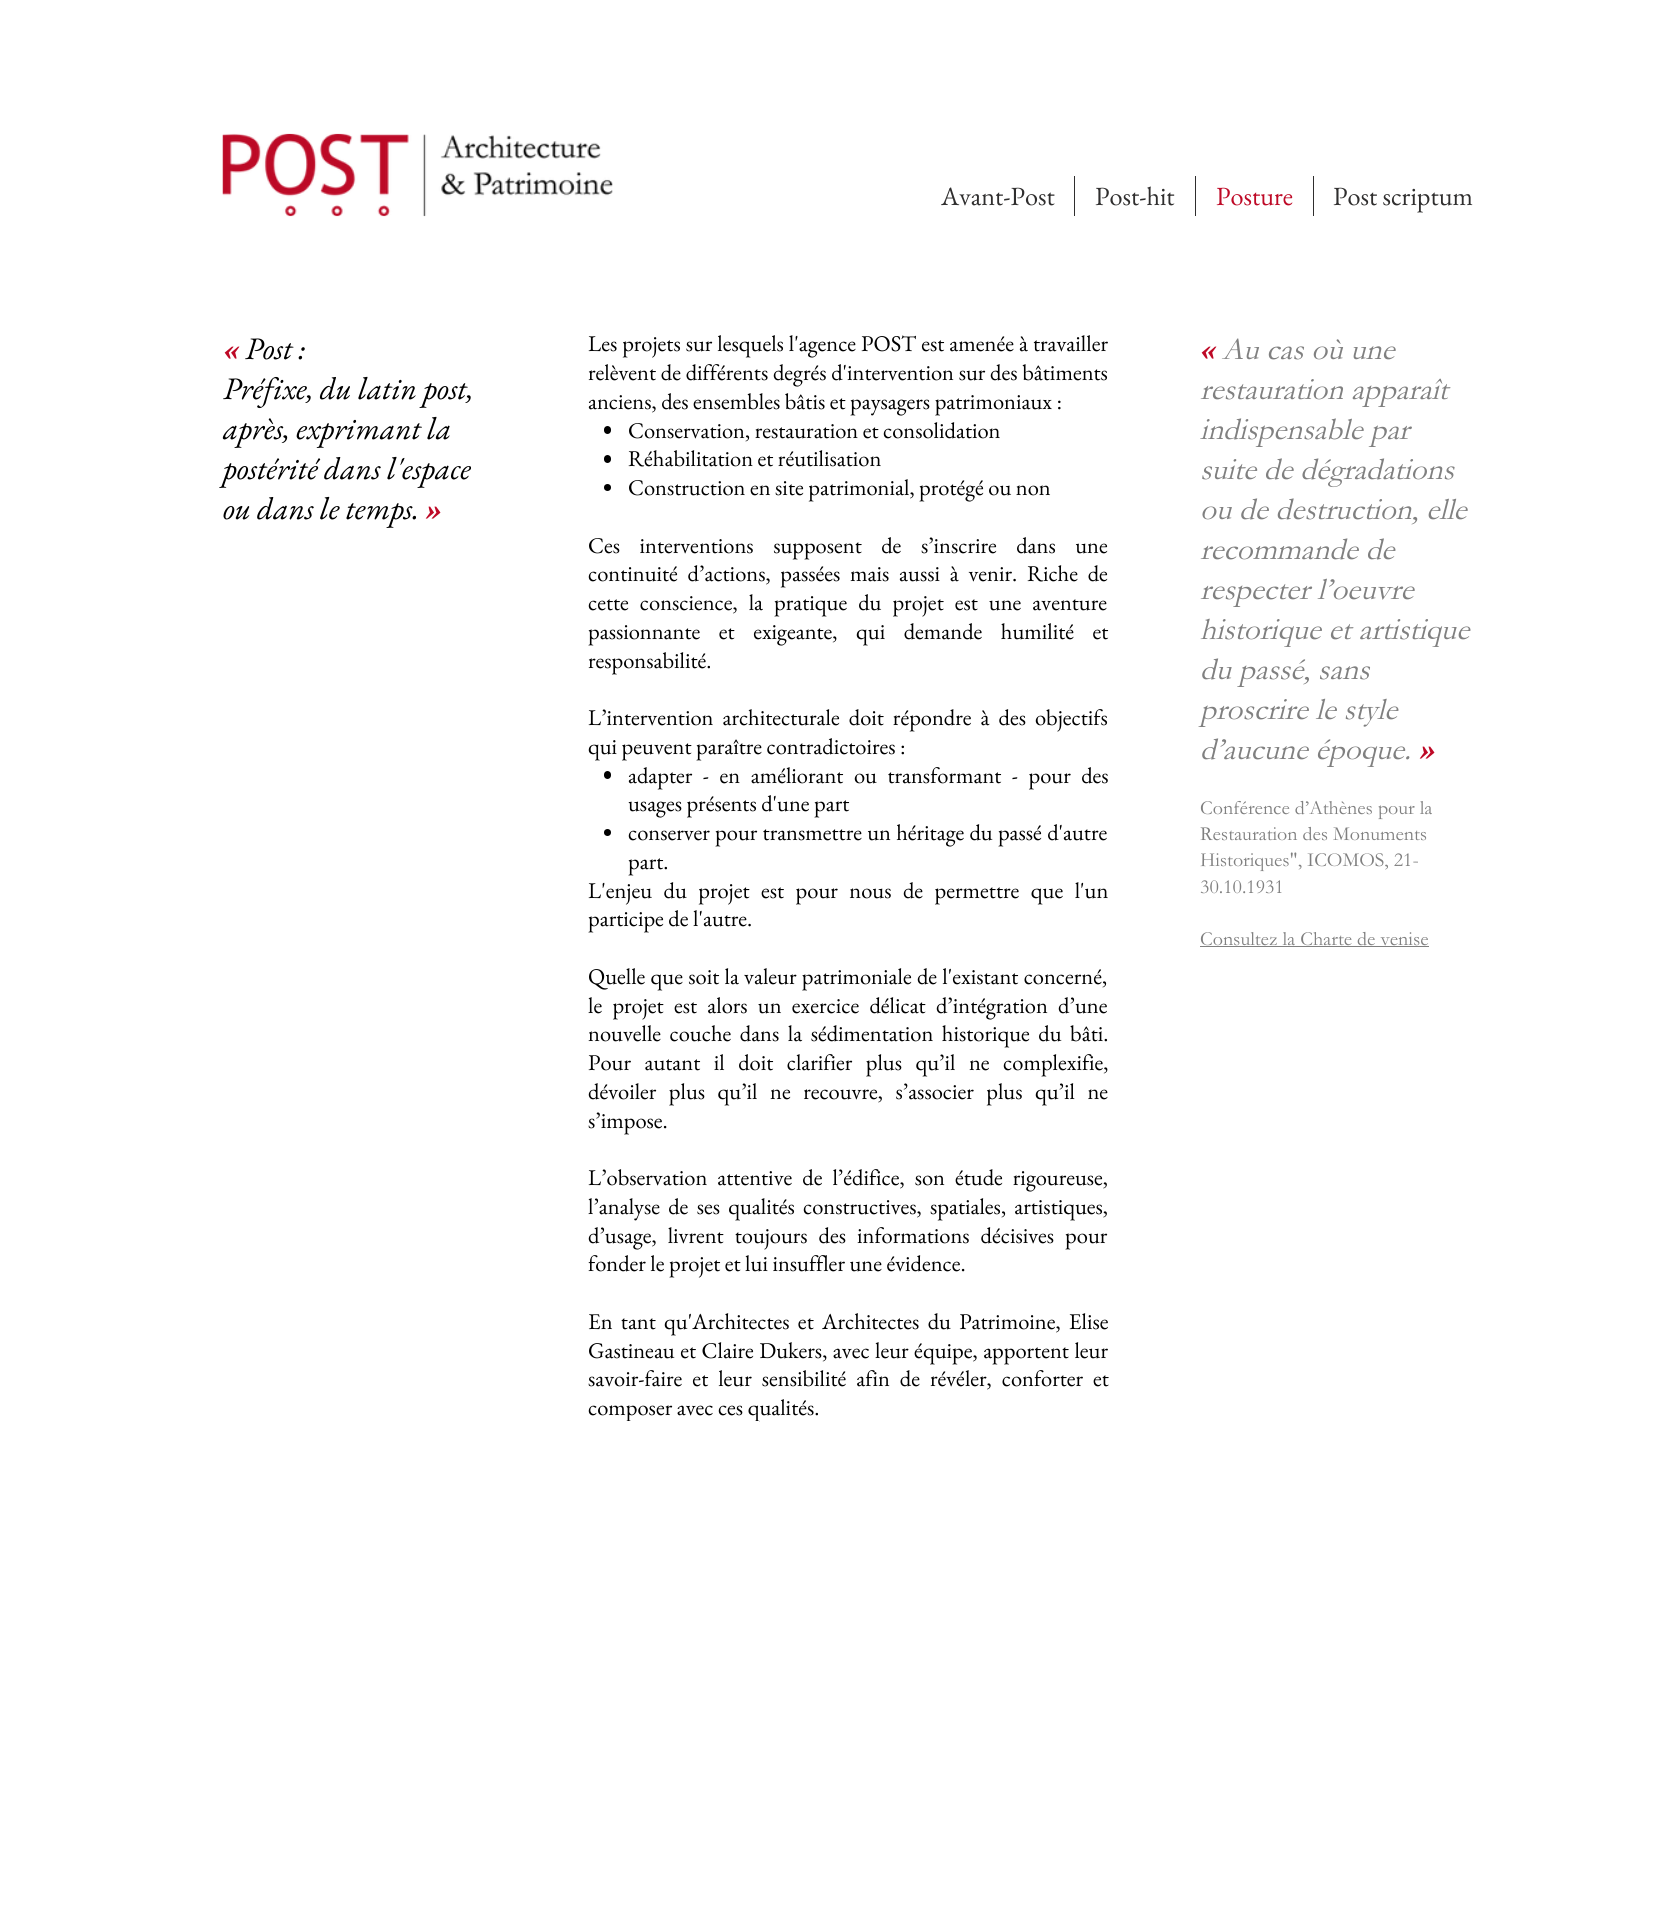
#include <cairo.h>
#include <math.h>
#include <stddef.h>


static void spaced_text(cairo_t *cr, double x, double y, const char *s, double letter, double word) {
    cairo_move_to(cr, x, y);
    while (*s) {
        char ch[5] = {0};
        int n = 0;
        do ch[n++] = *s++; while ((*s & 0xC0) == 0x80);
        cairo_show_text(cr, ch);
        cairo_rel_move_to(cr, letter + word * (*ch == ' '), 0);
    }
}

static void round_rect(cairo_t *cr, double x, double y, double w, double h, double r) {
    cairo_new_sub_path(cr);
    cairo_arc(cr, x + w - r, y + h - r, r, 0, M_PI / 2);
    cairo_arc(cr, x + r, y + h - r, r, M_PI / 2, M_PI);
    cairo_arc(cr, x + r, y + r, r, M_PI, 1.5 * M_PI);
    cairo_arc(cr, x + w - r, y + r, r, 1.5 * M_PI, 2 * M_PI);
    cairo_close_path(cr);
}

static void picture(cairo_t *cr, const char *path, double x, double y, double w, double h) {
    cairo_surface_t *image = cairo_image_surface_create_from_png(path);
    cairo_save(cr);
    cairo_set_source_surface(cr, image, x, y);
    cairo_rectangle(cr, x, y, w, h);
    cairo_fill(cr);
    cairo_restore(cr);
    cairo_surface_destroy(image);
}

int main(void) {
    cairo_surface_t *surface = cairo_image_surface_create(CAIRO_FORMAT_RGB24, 1670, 1922);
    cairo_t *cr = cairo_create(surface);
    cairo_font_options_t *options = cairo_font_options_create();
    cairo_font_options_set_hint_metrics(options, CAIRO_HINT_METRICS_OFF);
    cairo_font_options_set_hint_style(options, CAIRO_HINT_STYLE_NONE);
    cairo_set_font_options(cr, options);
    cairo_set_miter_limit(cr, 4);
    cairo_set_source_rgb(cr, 1, 1, 1);
    cairo_paint(cr);
    picture(cr, "img1.png", 222, 133, 391, 84);
    cairo_select_font_face(cr, "EB Garamond", CAIRO_FONT_SLANT_NORMAL, CAIRO_FONT_WEIGHT_NORMAL);
    cairo_set_font_size(cr, 26.25);
    cairo_set_source_rgb(cr, 0.184, 0.18, 0.18);
    cairo_move_to(cr, 941, 205);
    cairo_show_text(cr, "Avant-Post");
    cairo_rectangle(cr, 1074, 176, 1, 40);
    cairo_fill(cr);
    cairo_move_to(cr, 1095, 205);
    cairo_show_text(cr, "Post-hit");
    cairo_rectangle(cr, 1195, 176, 1, 40);
    cairo_fill(cr);
    cairo_set_source_rgb(cr, 0.745, 0.039, 0.149);
    cairo_move_to(cr, 1216, 205);
    cairo_show_text(cr, "Posture");
    cairo_set_source_rgb(cr, 0.184, 0.18, 0.18);
    cairo_rectangle(cr, 1313, 176, 1, 40);
    cairo_fill(cr);
    cairo_move_to(cr, 1333, 205);
    cairo_show_text(cr, "Post scriptum");
    cairo_select_font_face(cr, "Garamond", CAIRO_FONT_SLANT_ITALIC, CAIRO_FONT_WEIGHT_BOLD);
    cairo_set_font_size(cr, 31.25);
    cairo_set_source_rgb(cr, 0.745, 0.039, 0.149);
    cairo_move_to(cr, 223, 359);
    cairo_show_text(cr, "«");
    cairo_select_font_face(cr, "EB Garamond", CAIRO_FONT_SLANT_ITALIC, CAIRO_FONT_WEIGHT_NORMAL);
    cairo_set_source_rgb(cr, 0, 0, 0);
    cairo_move_to(cr, 245, 359);
    cairo_show_text(cr, "Post :");
    cairo_move_to(cr, 223, 399);
    cairo_show_text(cr, "Préfixe, du latin post,");
    cairo_move_to(cr, 223, 439);
    cairo_show_text(cr, "après, exprimant la");
    cairo_move_to(cr, 223, 479);
    cairo_show_text(cr, "postérité dans l'espace");
    cairo_move_to(cr, 223, 519);
    cairo_show_text(cr, "ou dans le temps.");
    cairo_select_font_face(cr, "Garamond", CAIRO_FONT_SLANT_ITALIC, CAIRO_FONT_WEIGHT_BOLD);
    cairo_set_source_rgb(cr, 0.745, 0.039, 0.149);
    cairo_move_to(cr, 425, 519);
    cairo_show_text(cr, "»");
    cairo_select_font_face(cr, "EB Garamond", CAIRO_FONT_SLANT_NORMAL, CAIRO_FONT_WEIGHT_NORMAL);
    cairo_set_font_size(cr, 22.5);
    cairo_set_source_rgb(cr, 0, 0, 0);
    spaced_text(cr, 588, 351, "Les projets sur lesquels l'agence POST est amenée à travailler", 0, 0.5);
    spaced_text(cr, 588, 380, "relèvent de différents degrés d'intervention sur des bâtiments", 0, 0.25);
    cairo_move_to(cr, 588, 409);
    cairo_show_text(cr, "anciens, des ensembles bâtis et paysagers patrimoniaux :");
    round_rect(cr, 604, 426, 7, 8, 3.5);
    cairo_fill(cr);
    cairo_move_to(cr, 628, 438);
    cairo_show_text(cr, "Conservation, restauration et consolidation");
    round_rect(cr, 604, 455, 7, 8, 3.5);
    cairo_fill(cr);
    cairo_move_to(cr, 628, 466);
    cairo_show_text(cr, "Réhabilitation et réutilisation");
    cairo_new_path(cr);
    cairo_arc(cr, 607.5, 487.5, 3.5, 0, 2 * M_PI);
    cairo_fill(cr);
    cairo_move_to(cr, 628, 495);
    cairo_show_text(cr, "Construction en site patrimonial, protégé ou non");
    spaced_text(cr, 588, 553, "Ces interventions supposent de s’inscrire dans une", 0, 15);
    spaced_text(cr, 588, 581, "continuité d’actions, passées mais aussi à venir. Riche de", 0, 5.25);
    spaced_text(cr, 588, 610, "cette conscience, la pratique du projet est une aventure", 0, 6.5);
    spaced_text(cr, 588, 639, "passionnante et exigeante, qui demande humilité et", 0, 14);
    cairo_move_to(cr, 588, 668);
    cairo_show_text(cr, "responsabilité.");
    spaced_text(cr, 588, 725, "L’intervention architecturale doit répondre à des objectifs", 0, 4.5);
    cairo_move_to(cr, 588, 754);
    cairo_show_text(cr, "qui peuvent paraître contradictoires :");
    round_rect(cr, 604, 771, 7, 8, 3.5);
    cairo_fill(cr);
    spaced_text(cr, 628, 783, "adapter - en améliorant ou transformant - pour des", 0, 6);
    cairo_move_to(cr, 628, 811);
    cairo_show_text(cr, "usages présents d'une part");
    cairo_new_path(cr);
    cairo_arc(cr, 607.5, 832.5, 3.5, 0, 2 * M_PI);
    cairo_fill(cr);
    spaced_text(cr, 628, 840, "conserver pour transmettre un héritage du passé d'autre", 0, 0.75);
    cairo_move_to(cr, 628, 869);
    cairo_show_text(cr, "part.");
    spaced_text(cr, 588, 898, "L'enjeu du projet est pour nous de permettre que l'un", 0, 7);
    cairo_move_to(cr, 588, 926);
    cairo_show_text(cr, "participe de l'autre.");
    spaced_text(cr, 588, 984, "Quelle que soit la valeur patrimoniale de l'existant concerné,", 0, 0.75);
    spaced_text(cr, 588, 1013, "le projet est alors un exercice délicat d’intégration d’une", 0, 5.75);
    spaced_text(cr, 588, 1041, "nouvelle couche dans la sédimentation historique du bâti.", 0, 4);
    spaced_text(cr, 588, 1070, "Pour autant il doit clarifier plus qu’il ne complexifie,", 0, 9);
    spaced_text(cr, 588, 1099, "dévoiler plus qu’il ne recouvre, s’associer plus qu’il ne", 0, 8);
    cairo_move_to(cr, 588, 1128);
    cairo_show_text(cr, "s’impose.");
    spaced_text(cr, 588, 1185, "L’observation attentive de l’édifice, son étude rigoureuse,", 0, 5.5);
    spaced_text(cr, 588, 1214, "l’analyse de ses qualités constructives, spatiales, artistiques,", 0, 3.75);
    spaced_text(cr, 588, 1243, "d’usage, livrent toujours des informations décisives pour", 0, 6.5);
    cairo_move_to(cr, 588, 1271);
    cairo_show_text(cr, "fonder le projet et lui insuffler une évidence.");
    spaced_text(cr, 588, 1329, "En tant qu'Architectes et Architectes du Patrimoine, Elise", 0, 3.75);
    spaced_text(cr, 588, 1358, "Gastineau et Claire Dukers, avec leur équipe, apportent leur", 0, 1);
    spaced_text(cr, 588, 1386, "savoir-faire et leur sensibilité afin de révéler, conforter et", 0, 5.5);
    cairo_move_to(cr, 588, 1415);
    cairo_show_text(cr, "composer avec ces qualités.");
    cairo_select_font_face(cr, "Garamond", CAIRO_FONT_SLANT_ITALIC, CAIRO_FONT_WEIGHT_BOLD);
    cairo_set_font_size(cr, 31.25);
    cairo_set_source_rgb(cr, 0.745, 0.039, 0.149);
    cairo_move_to(cr, 1200, 359);
    cairo_show_text(cr, "«");
    cairo_select_font_face(cr, "Garamond", CAIRO_FONT_SLANT_ITALIC, CAIRO_FONT_WEIGHT_NORMAL);
    cairo_set_source_rgb(cr, 0.502, 0.502, 0.502);
    cairo_move_to(cr, 1222, 359);
    cairo_show_text(cr, "Au cas où une");
    cairo_move_to(cr, 1200, 399);
    cairo_show_text(cr, "restauration apparaît");
    cairo_move_to(cr, 1200, 439);
    cairo_show_text(cr, "indispensable par");
    cairo_move_to(cr, 1200, 479);
    cairo_show_text(cr, "suite de dégradations");
    cairo_move_to(cr, 1200, 519);
    cairo_show_text(cr, "ou de destruction, elle");
    cairo_move_to(cr, 1200, 559);
    cairo_show_text(cr, "recommande de");
    cairo_move_to(cr, 1200, 599);
    cairo_show_text(cr, "respecter l’oeuvre");
    cairo_move_to(cr, 1200, 639);
    cairo_show_text(cr, "historique et artistique");
    cairo_move_to(cr, 1200, 679);
    cairo_show_text(cr, "du passé, sans");
    cairo_move_to(cr, 1200, 719);
    cairo_show_text(cr, "proscrire le style");
    cairo_move_to(cr, 1200, 759);
    cairo_show_text(cr, "d’aucune époque.");
    cairo_select_font_face(cr, "Garamond", CAIRO_FONT_SLANT_ITALIC, CAIRO_FONT_WEIGHT_BOLD);
    cairo_set_source_rgb(cr, 0.745, 0.039, 0.149);
    cairo_move_to(cr, 1419, 759);
    cairo_show_text(cr, "»");
    cairo_select_font_face(cr, "Garamond", CAIRO_FONT_SLANT_NORMAL, CAIRO_FONT_WEIGHT_NORMAL);
    cairo_set_font_size(cr, 20);
    cairo_set_source_rgb(cr, 0.502, 0.502, 0.502);
    cairo_move_to(cr, 1200, 814);
    cairo_show_text(cr, "Conférence d’Athènes pour la");
    cairo_move_to(cr, 1200, 840);
    cairo_show_text(cr, "Restauration des Monuments");
    cairo_move_to(cr, 1200, 866);
    cairo_show_text(cr, "Historiques\", ICOMOS, 21-");
    cairo_move_to(cr, 1200, 893);
    cairo_show_text(cr, "30.10.1931");
    cairo_move_to(cr, 1200, 945);
    cairo_show_text(cr, "Consultez la Charte de venise");
    cairo_rectangle(cr, 1200, 946, 229, 1);
    cairo_fill(cr);
    cairo_set_source_rgb(cr, 1, 1, 1);
    cairo_rectangle(cr, 625, 1421, 134, 1);
    cairo_fill(cr);
    cairo_surface_write_to_png(surface, "page.png");
    cairo_font_options_destroy(options);
    cairo_destroy(cr);
    cairo_surface_destroy(surface);
    return 0;
}
